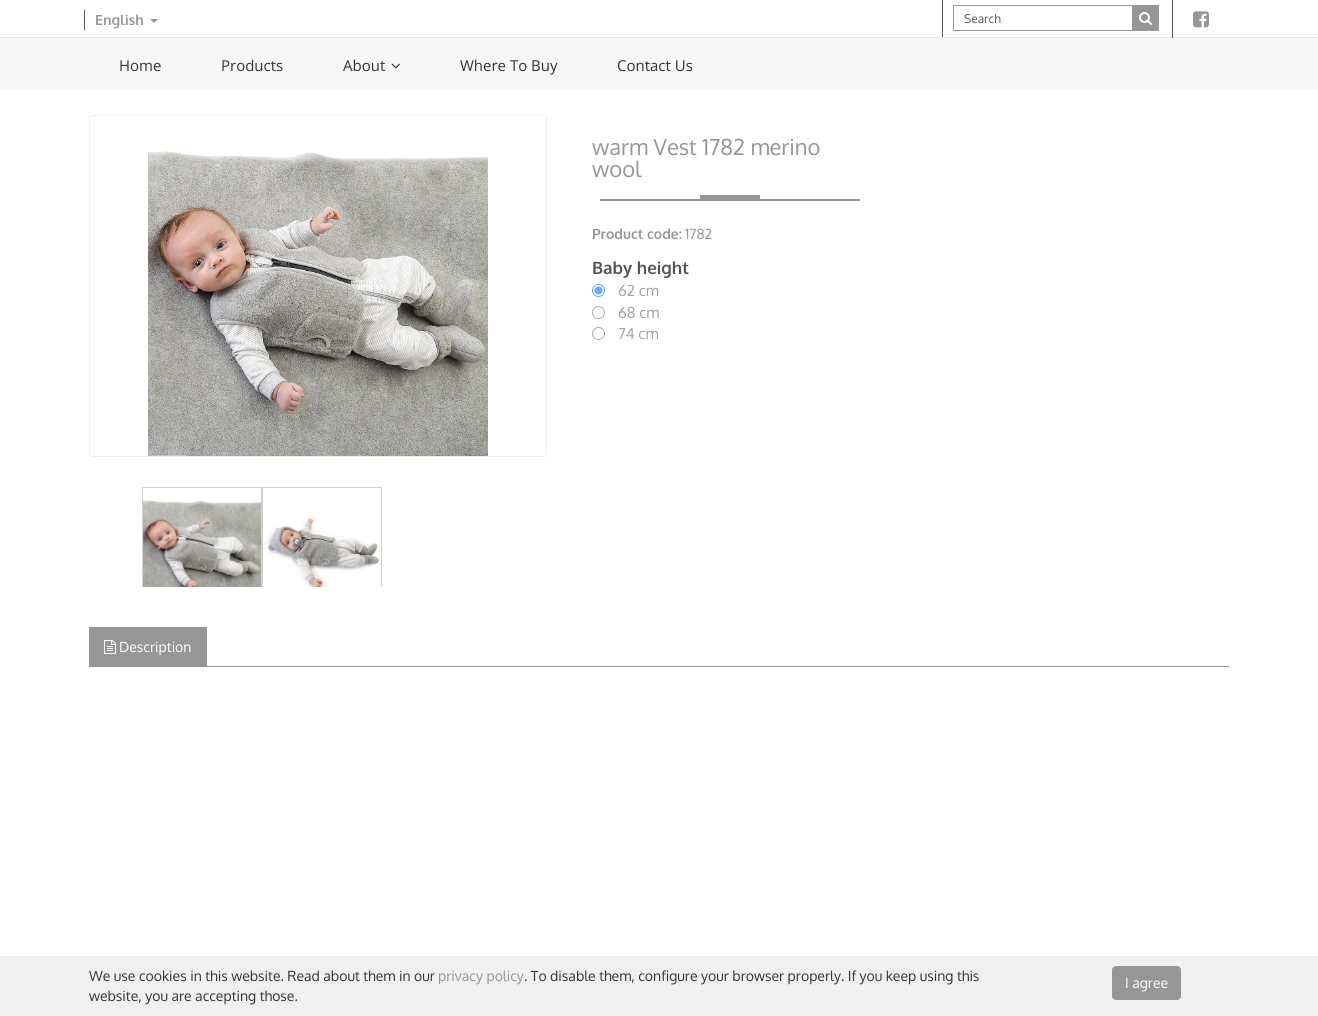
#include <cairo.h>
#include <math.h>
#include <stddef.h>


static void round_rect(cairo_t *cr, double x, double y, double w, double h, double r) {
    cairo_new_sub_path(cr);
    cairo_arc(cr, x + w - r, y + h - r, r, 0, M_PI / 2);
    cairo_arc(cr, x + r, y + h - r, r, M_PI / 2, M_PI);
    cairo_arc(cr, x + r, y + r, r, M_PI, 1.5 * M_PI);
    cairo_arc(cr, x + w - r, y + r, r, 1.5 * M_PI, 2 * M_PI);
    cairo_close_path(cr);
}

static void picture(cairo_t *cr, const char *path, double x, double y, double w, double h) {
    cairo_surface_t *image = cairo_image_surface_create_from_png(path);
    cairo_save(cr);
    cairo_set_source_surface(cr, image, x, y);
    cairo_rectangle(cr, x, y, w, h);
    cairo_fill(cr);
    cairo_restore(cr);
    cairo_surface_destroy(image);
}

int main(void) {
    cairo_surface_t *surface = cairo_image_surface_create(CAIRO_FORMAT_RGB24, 1318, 1016);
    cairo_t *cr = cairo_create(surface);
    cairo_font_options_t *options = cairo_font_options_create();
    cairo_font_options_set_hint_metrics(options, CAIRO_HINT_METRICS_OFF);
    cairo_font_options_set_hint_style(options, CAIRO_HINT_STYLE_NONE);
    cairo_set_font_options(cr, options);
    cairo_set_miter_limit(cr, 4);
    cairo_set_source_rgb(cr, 1, 1, 1);
    cairo_paint(cr);
    cairo_set_source_rgb(cr, 0.898, 0.898, 0.898);
    cairo_rectangle(cr, 0, 37, 1318, 1);
    cairo_fill(cr);
    cairo_set_source_rgb(cr, 0.337, 0.337, 0.337);
    cairo_rectangle(cr, 84, 10, 1, 20);
    cairo_fill(cr);
    cairo_select_font_face(cr, "Oxygen", CAIRO_FONT_SLANT_NORMAL, CAIRO_FONT_WEIGHT_BOLD);
    cairo_set_font_size(cr, 14);
    cairo_set_source_rgb(cr, 0.588, 0.588, 0.588);
    cairo_move_to(cr, 95, 25);
    cairo_show_text(cr, "English");
    cairo_new_path(cr);
    cairo_move_to(cr, 150, 19);
    cairo_line_to(cr, 158, 19);
    cairo_line_to(cr, 154, 23);
    cairo_close_path(cr);
    cairo_fill(cr);
    cairo_set_source_rgb(cr, 0.337, 0.337, 0.337);
    cairo_rectangle(cr, 942, 0, 1, 37);
    cairo_fill(cr);
    cairo_rectangle(cr, 953.5, 5.5, 179, 25);
    cairo_set_source_rgb(cr, 0.588, 0.588, 0.588);
    cairo_set_line_width(cr, 1);
    cairo_stroke(cr);
    cairo_select_font_face(cr, "Oxygen", CAIRO_FONT_SLANT_NORMAL, CAIRO_FONT_WEIGHT_NORMAL);
    cairo_set_font_size(cr, 12);
    cairo_set_source_rgb(cr, 0.333, 0.333, 0.333);
    cairo_move_to(cr, 964, 23);
    cairo_show_text(cr, "Search");
    cairo_set_source_rgb(cr, 0.588, 0.588, 0.588);
    cairo_rectangle(cr, 1133, 5, 26, 26);
    cairo_fill(cr);
    picture(cr, "img1.png", 1139, 12, 13, 13);
    cairo_set_source_rgb(cr, 0.337, 0.337, 0.337);
    cairo_rectangle(cr, 1172, 0, 1, 38);
    cairo_fill(cr);
    picture(cr, "img2.png", 1193, 11, 16, 17);
    cairo_set_source_rgb(cr, 0.965, 0.965, 0.965);
    cairo_rectangle(cr, 0, 38, 1318, 52);
    cairo_fill(cr);
    cairo_select_font_face(cr, "Open Sans", CAIRO_FONT_SLANT_NORMAL, CAIRO_FONT_WEIGHT_NORMAL);
    cairo_set_font_size(cr, 15);
    cairo_set_source_rgb(cr, 0.2, 0.2, 0.2);
    cairo_move_to(cr, 119, 71);
    cairo_show_text(cr, "Home");
    cairo_move_to(cr, 221, 71);
    cairo_show_text(cr, "Products");
    cairo_move_to(cr, 343, 71);
    cairo_show_text(cr, "About");
    picture(cr, "img3.png", 391, 63, 9, 6);
    cairo_move_to(cr, 460, 71);
    cairo_show_text(cr, "Where To Buy");
    cairo_move_to(cr, 617, 71);
    cairo_show_text(cr, "Contact Us");
    round_rect(cr, 89.5, 115.5, 457, 341, 2.5);
    cairo_set_source_rgb(cr, 0.933, 0.933, 0.933);
    cairo_stroke(cr);
    picture(cr, "img4.png", 148, 151, 340, 305);
    cairo_rectangle(cr, 142.5, 487.5, 119, 99);
    cairo_set_source_rgb(cr, 0.816, 0.816, 0.816);
    cairo_stroke(cr);
    picture(cr, "img5.png", 143, 500, 118, 87);
    cairo_rectangle(cr, 262.5, 487.5, 119, 99);
    cairo_stroke(cr);
    picture(cr, "img6.png", 263, 518, 118, 69);
    cairo_select_font_face(cr, "Oxygen", CAIRO_FONT_SLANT_NORMAL, CAIRO_FONT_WEIGHT_NORMAL);
    cairo_set_font_size(cr, 22);
    cairo_set_source_rgb(cr, 0.588, 0.588, 0.588);
    cairo_move_to(cr, 592, 155);
    cairo_show_text(cr, "warm Vest 1782 merino");
    cairo_move_to(cr, 592, 177);
    cairo_show_text(cr, "wool");
    cairo_rectangle(cr, 700, 195, 60, 4);
    cairo_fill(cr);
    cairo_rectangle(cr, 600, 199, 260, 2);
    cairo_fill(cr);
    cairo_select_font_face(cr, "Oxygen", CAIRO_FONT_SLANT_NORMAL, CAIRO_FONT_WEIGHT_BOLD);
    cairo_set_font_size(cr, 14);
    cairo_move_to(cr, 592, 239);
    cairo_show_text(cr, "Product code:");
    cairo_select_font_face(cr, "Oxygen", CAIRO_FONT_SLANT_NORMAL, CAIRO_FONT_WEIGHT_NORMAL);
    cairo_move_to(cr, 685, 239);
    cairo_show_text(cr, "1782");
    cairo_select_font_face(cr, "Oxygen", CAIRO_FONT_SLANT_NORMAL, CAIRO_FONT_WEIGHT_BOLD);
    cairo_set_font_size(cr, 17);
    cairo_set_source_rgb(cr, 0.333, 0.333, 0.333);
    cairo_move_to(cr, 592, 274);
    cairo_show_text(cr, "Baby height");
    cairo_new_path(cr);
    cairo_arc(cr, 598.5, 290.5, 6, 0, 2 * M_PI);
    cairo_set_source_rgb(cr, 0.4, 0.675, 1);
    cairo_stroke(cr);
    cairo_arc(cr, 598.5, 290.5, 4, 0, 2 * M_PI);
    cairo_fill(cr);
    cairo_select_font_face(cr, "Oxygen", CAIRO_FONT_SLANT_NORMAL, CAIRO_FONT_WEIGHT_NORMAL);
    cairo_set_font_size(cr, 15);
    cairo_set_source_rgb(cr, 0.631, 0.631, 0.631);
    cairo_move_to(cr, 618, 296);
    cairo_show_text(cr, "62 cm");
    cairo_new_path(cr);
    cairo_arc(cr, 598.5, 312.5, 6, 0, 2 * M_PI);
    cairo_set_source_rgb(cr, 0.678, 0.678, 0.678);
    cairo_stroke(cr);
    cairo_set_source_rgb(cr, 0.631, 0.631, 0.631);
    cairo_move_to(cr, 618, 318);
    cairo_show_text(cr, "68 cm");
    cairo_new_path(cr);
    cairo_arc(cr, 598.5, 333.5, 6, 0, 2 * M_PI);
    cairo_set_source_rgb(cr, 0.678, 0.678, 0.678);
    cairo_stroke(cr);
    cairo_set_source_rgb(cr, 0.631, 0.631, 0.631);
    cairo_move_to(cr, 618, 339);
    cairo_show_text(cr, "74 cm");
    cairo_set_source_rgb(cr, 0.588, 0.588, 0.588);
    cairo_rectangle(cr, 207, 666, 1022, 1);
    cairo_fill(cr);
    cairo_rectangle(cr, 89, 627, 118, 40);
    cairo_fill(cr);
    picture(cr, "img7.png", 104, 640, 12, 14);
    cairo_set_font_size(cr, 14);
    cairo_set_source_rgb(cr, 1, 1, 1);
    cairo_move_to(cr, 119, 652);
    cairo_show_text(cr, "Description");
    cairo_set_source_rgb(cr, 0.941, 0.941, 0.941);
    cairo_rectangle(cr, 0, 956, 1318, 60);
    cairo_fill(cr);
    cairo_set_source_rgb(cr, 0.2, 0.2, 0.2);
    cairo_move_to(cr, 89, 981);
    cairo_show_text(cr, "We use cookies in this website. Read about them in our");
    cairo_set_source_rgb(cr, 0.588, 0.588, 0.588);
    cairo_move_to(cr, 438, 981);
    cairo_show_text(cr, "privacy policy");
    cairo_set_source_rgb(cr, 0.2, 0.2, 0.2);
    cairo_move_to(cr, 524, 981);
    cairo_show_text(cr, ". To disable them, configure your browser properly. If you keep using this");
    cairo_move_to(cr, 89, 1001);
    cairo_show_text(cr, "website, you are accepting those.");
    cairo_set_source_rgb(cr, 0.588, 0.588, 0.588);
    round_rect(cr, 1112.5, 966.5, 68, 33, 3.5);
    cairo_fill_preserve(cr);
    cairo_stroke(cr);
    cairo_set_source_rgb(cr, 1, 1, 1);
    cairo_move_to(cr, 1125, 988);
    cairo_show_text(cr, "I agree");
    cairo_surface_write_to_png(surface, "page.png");
    cairo_font_options_destroy(options);
    cairo_destroy(cr);
    cairo_surface_destroy(surface);
    return 0;
}
